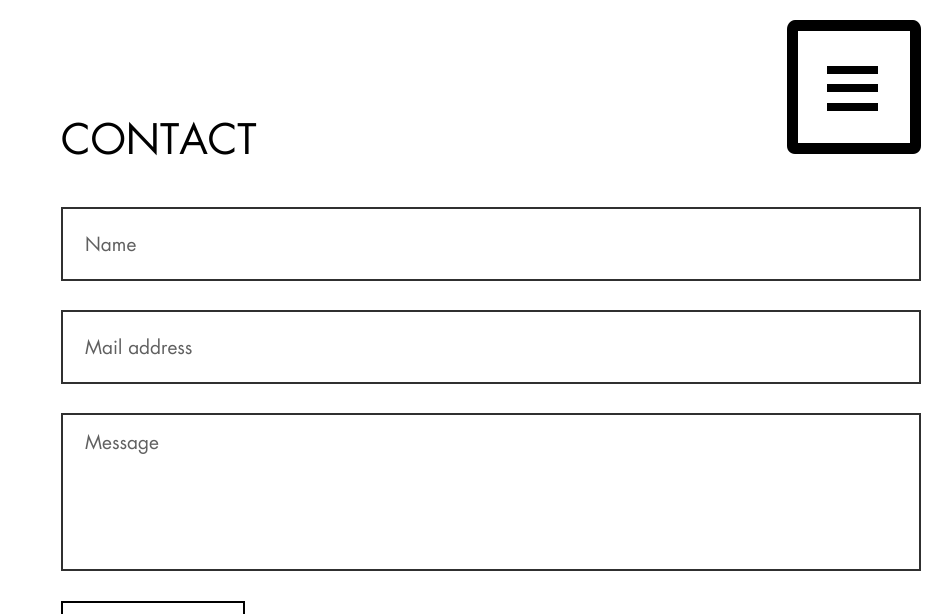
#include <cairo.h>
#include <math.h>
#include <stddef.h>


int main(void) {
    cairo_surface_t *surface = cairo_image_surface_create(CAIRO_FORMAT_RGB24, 941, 614);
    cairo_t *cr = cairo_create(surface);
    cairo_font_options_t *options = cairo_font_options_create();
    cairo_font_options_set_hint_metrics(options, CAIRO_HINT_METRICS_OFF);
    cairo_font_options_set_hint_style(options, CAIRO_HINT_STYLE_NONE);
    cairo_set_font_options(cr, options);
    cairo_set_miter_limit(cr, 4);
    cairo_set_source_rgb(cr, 1, 1, 1);
    cairo_paint(cr);
    cairo_set_source_rgb(cr, 0, 0, 0);
    cairo_new_path(cr);
    cairo_move_to(cr, 910, 31);
    cairo_line_to(cr, 910, 143);
    cairo_line_to(cr, 798, 143);
    cairo_line_to(cr, 798, 31);
    cairo_line_to(cr, 910, 31);
    cairo_move_to(cr, 913, 20);
    cairo_line_to(cr, 795, 20);
    cairo_curve_to(cr, 791, 20, 787, 24, 787, 29);
    cairo_line_to(cr, 787, 146);
    cairo_curve_to(cr, 787, 151, 791, 154, 795, 154);
    cairo_line_to(cr, 913, 154);
    cairo_curve_to(cr, 917, 154, 921, 151, 921, 146);
    cairo_line_to(cr, 921, 29);
    cairo_curve_to(cr, 921, 24, 917, 20, 913, 20);
    cairo_close_path(cr);
    cairo_fill(cr);
    cairo_rectangle(cr, 827, 103, 51, 8);
    cairo_fill(cr);
    cairo_rectangle(cr, 827, 66, 51, 8);
    cairo_fill(cr);
    cairo_rectangle(cr, 827, 84, 51, 8);
    cairo_fill(cr);
    cairo_select_font_face(cr, "futura", CAIRO_FONT_SLANT_NORMAL, CAIRO_FONT_WEIGHT_NORMAL);
    cairo_set_font_size(cr, 41);
    cairo_move_to(cr, 61, 154);
    cairo_show_text(cr, "CONTACT");
    cairo_rectangle(cr, 62, 208, 858, 72);
    cairo_set_source_rgb(cr, 0.188, 0.188, 0.188);
    cairo_stroke(cr);
    cairo_set_font_size(cr, 19);
    cairo_set_source_rgb(cr, 0.376, 0.376, 0.376);
    cairo_move_to(cr, 85, 251);
    cairo_show_text(cr, "Name");
    cairo_rectangle(cr, 62, 311, 858, 72);
    cairo_set_source_rgb(cr, 0.188, 0.188, 0.188);
    cairo_stroke(cr);
    cairo_set_source_rgb(cr, 0.376, 0.376, 0.376);
    cairo_move_to(cr, 85, 354);
    cairo_show_text(cr, "Mail address");
    cairo_rectangle(cr, 62, 414, 858, 156);
    cairo_set_source_rgb(cr, 0.188, 0.188, 0.188);
    cairo_stroke(cr);
    cairo_set_source_rgb(cr, 0.376, 0.376, 0.376);
    cairo_move_to(cr, 85, 449);
    cairo_show_text(cr, "Message");
    cairo_rectangle(cr, 62, 602, 182, 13);
    cairo_set_source_rgb(cr, 0, 0, 0);
    cairo_stroke(cr);
    cairo_surface_write_to_png(surface, "page.png");
    cairo_font_options_destroy(options);
    cairo_destroy(cr);
    cairo_surface_destroy(surface);
    return 0;
}
